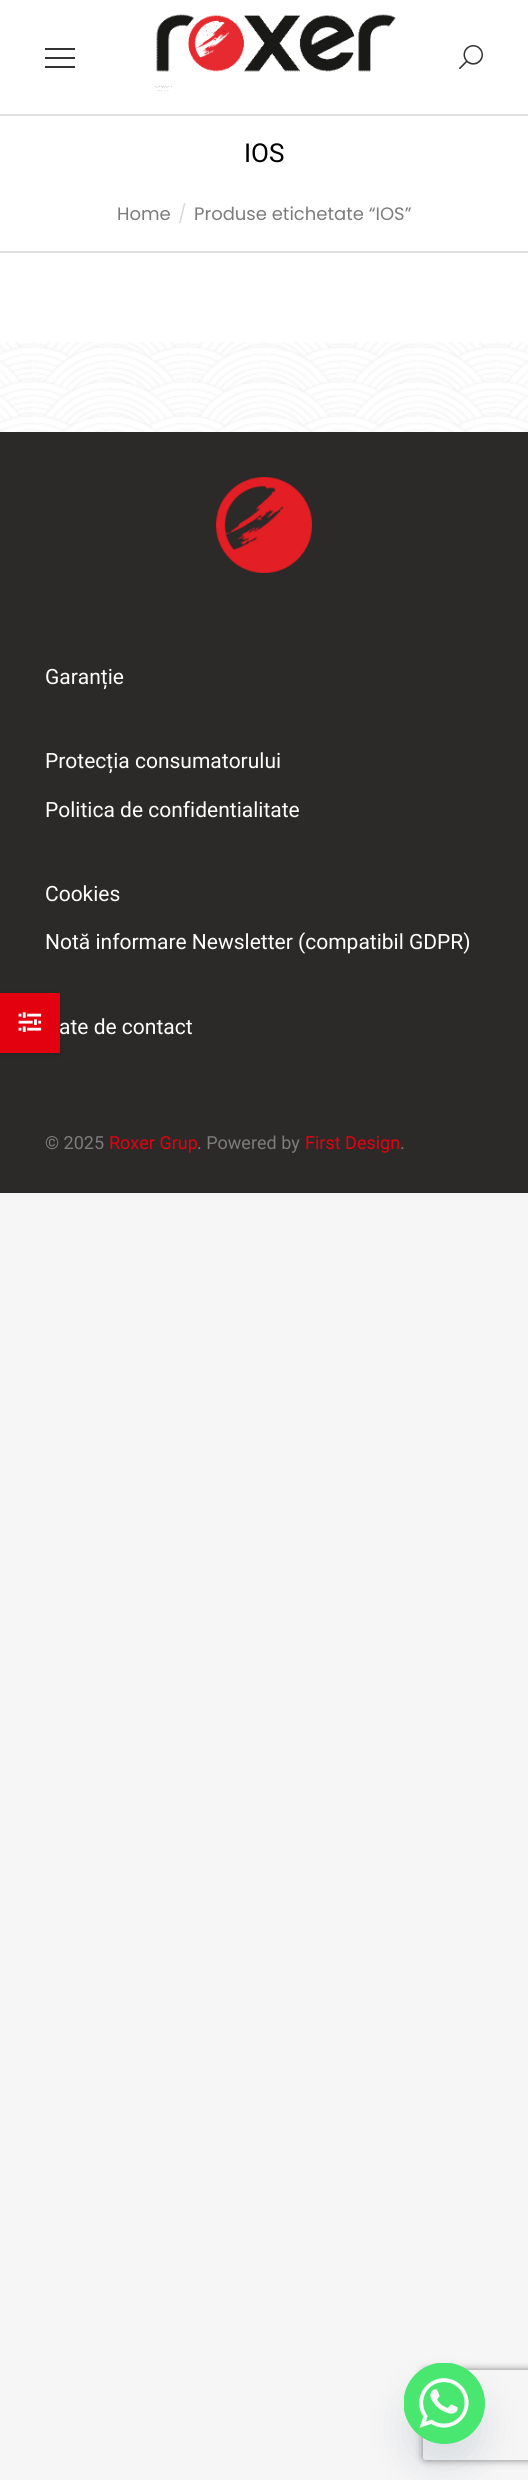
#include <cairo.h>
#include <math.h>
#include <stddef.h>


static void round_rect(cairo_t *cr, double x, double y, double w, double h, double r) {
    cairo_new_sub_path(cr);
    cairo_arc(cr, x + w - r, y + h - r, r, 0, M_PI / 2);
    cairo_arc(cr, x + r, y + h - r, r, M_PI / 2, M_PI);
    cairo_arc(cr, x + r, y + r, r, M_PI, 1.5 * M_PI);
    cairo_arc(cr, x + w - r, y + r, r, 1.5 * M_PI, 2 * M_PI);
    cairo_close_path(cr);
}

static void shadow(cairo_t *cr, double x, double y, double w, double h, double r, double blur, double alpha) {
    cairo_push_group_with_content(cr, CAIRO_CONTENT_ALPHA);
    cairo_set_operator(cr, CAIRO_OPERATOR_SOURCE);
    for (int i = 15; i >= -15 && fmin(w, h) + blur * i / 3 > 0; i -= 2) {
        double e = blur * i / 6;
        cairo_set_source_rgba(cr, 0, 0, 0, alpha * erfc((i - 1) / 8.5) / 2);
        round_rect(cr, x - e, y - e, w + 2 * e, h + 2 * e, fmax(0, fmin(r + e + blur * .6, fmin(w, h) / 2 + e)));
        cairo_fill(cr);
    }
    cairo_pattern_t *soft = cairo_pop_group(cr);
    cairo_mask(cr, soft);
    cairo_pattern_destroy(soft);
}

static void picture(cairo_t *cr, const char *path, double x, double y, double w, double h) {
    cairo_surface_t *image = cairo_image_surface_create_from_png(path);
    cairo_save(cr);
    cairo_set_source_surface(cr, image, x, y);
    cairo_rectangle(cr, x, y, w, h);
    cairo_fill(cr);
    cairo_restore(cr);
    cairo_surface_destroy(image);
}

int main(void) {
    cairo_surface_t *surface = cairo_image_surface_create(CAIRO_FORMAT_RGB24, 528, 2480);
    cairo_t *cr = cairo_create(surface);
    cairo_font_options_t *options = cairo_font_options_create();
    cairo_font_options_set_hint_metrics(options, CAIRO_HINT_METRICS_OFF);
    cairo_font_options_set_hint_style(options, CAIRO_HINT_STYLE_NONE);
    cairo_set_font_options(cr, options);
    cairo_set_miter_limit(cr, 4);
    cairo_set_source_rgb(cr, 0.961, 0.961, 0.961);
    cairo_paint(cr);
    cairo_set_source_rgb(cr, 1, 1, 1);
    cairo_rectangle(cr, 0, 0, 528, 342);
    cairo_fill(cr);
    cairo_set_source_rgb(cr, 0.878, 0.878, 0.878);
    cairo_rectangle(cr, 0, 114, 528, 2);
    cairo_fill(cr);
    cairo_set_source_rgb(cr, 0.2, 0.2, 0.2);
    cairo_rectangle(cr, 45, 48, 30, 2);
    cairo_fill(cr);
    cairo_rectangle(cr, 45, 57, 30, 2);
    cairo_fill(cr);
    cairo_rectangle(cr, 45, 66, 30, 2);
    cairo_fill(cr);
    picture(cr, "img1.png", 155, 14, 241, 78);
    picture(cr, "img2.png", 459, 45, 24, 24);
    cairo_set_source_rgb(cr, 0.878, 0.878, 0.878);
    cairo_rectangle(cr, 0, 251, 528, 2);
    cairo_fill(cr);
    cairo_select_font_face(cr, "Roboto", CAIRO_FONT_SLANT_NORMAL, CAIRO_FONT_WEIGHT_NORMAL);
    cairo_set_font_size(cr, 26);
    cairo_set_source_rgb(cr, 0, 0, 0);
    cairo_move_to(cr, 244, 162);
    cairo_show_text(cr, "IOS");
    cairo_select_font_face(cr, "Poppins", CAIRO_FONT_SLANT_NORMAL, CAIRO_FONT_WEIGHT_NORMAL);
    cairo_set_font_size(cr, 18);
    cairo_set_source_rgb(cr, 0.486, 0.486, 0.486);
    cairo_move_to(cr, 117, 220);
    cairo_show_text(cr, "Home");
    cairo_set_source_rgb(cr, 0.851, 0.851, 0.851);
    cairo_move_to(cr, 178, 220);
    cairo_show_text(cr, "/");
    cairo_set_source_rgb(cr, 0.486, 0.486, 0.486);
    cairo_move_to(cr, 194, 220);
    cairo_show_text(cr, "Produse etichetate “IOS”");
    cairo_set_source_rgb(cr, 0.169, 0.165, 0.161);
    cairo_rectangle(cr, 0, 432, 528, 761);
    cairo_fill(cr);
    cairo_set_source_rgb(cr, 0, 0, 0);
    shadow(cr, 0, 995, 60, 60, 0, 4.5, 0.12);
    cairo_select_font_face(cr, "Roboto", CAIRO_FONT_SLANT_NORMAL, CAIRO_FONT_WEIGHT_NORMAL);
    cairo_set_font_size(cr, 21);
    cairo_set_source_rgb(cr, 1, 1, 1);
    cairo_move_to(cr, 59, 1034);
    cairo_show_text(cr, "ate de contact");
    cairo_set_source_rgb(cr, 0.89, 0.004, 0.059);
    cairo_rectangle(cr, 0, 993, 60, 60);
    cairo_fill(cr);
    picture(cr, "img3.png", 18, 1012, 24, 20);
    picture(cr, "img4.png", 0, 342, 528, 90);
    picture(cr, "img5.png", 216, 477, 96, 96);
    cairo_set_source_rgb(cr, 1, 1, 1);
    cairo_move_to(cr, 45, 684);
    cairo_show_text(cr, "Garanție");
    cairo_move_to(cr, 45, 768);
    cairo_show_text(cr, "Protecția consumatorului");
    cairo_move_to(cr, 45, 817);
    cairo_show_text(cr, "Politica de confidentialitate");
    cairo_move_to(cr, 45, 901);
    cairo_show_text(cr, "Cookies");
    cairo_move_to(cr, 45, 949);
    cairo_show_text(cr, "Notă informare Newsletter (compatibil GDPR)");
    cairo_set_font_size(cr, 18);
    cairo_set_source_rgb(cr, 0.486, 0.486, 0.486);
    cairo_move_to(cr, 45, 1149);
    cairo_show_text(cr, "© 2025");
    cairo_set_source_rgb(cr, 0.89, 0.004, 0.059);
    cairo_move_to(cr, 109, 1149);
    cairo_show_text(cr, "Roxer Grup");
    cairo_set_source_rgb(cr, 0.486, 0.486, 0.486);
    cairo_move_to(cr, 197, 1149);
    cairo_show_text(cr, ". Powered by");
    cairo_set_source_rgb(cr, 0.89, 0.004, 0.059);
    cairo_move_to(cr, 305, 1149);
    cairo_show_text(cr, "First Design");
    cairo_set_source_rgb(cr, 0.486, 0.486, 0.486);
    cairo_move_to(cr, 400, 1149);
    cairo_show_text(cr, ".");
    cairo_set_source_rgb(cr, 0.286, 0.408, 0.494);
    shadow(cr, 404, 2387, 81, 81, 40.5, 18, 0.16);
    cairo_save(cr);
    cairo_set_fill_rule(cr, CAIRO_FILL_RULE_EVEN_ODD);
    cairo_new_path(cr);
    cairo_move_to(cr, 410, 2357);
    cairo_line_to(cr, 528, 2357);
    cairo_line_to(cr, 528, 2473);
    cairo_line_to(cr, 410, 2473);
    cairo_close_path(cr);
    cairo_move_to(cr, 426, 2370);
    cairo_line_to(cr, 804, 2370);
    cairo_curve_to(cr, 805.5, 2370, 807, 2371.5, 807, 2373);
    cairo_line_to(cr, 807, 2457);
    cairo_curve_to(cr, 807, 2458.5, 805.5, 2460, 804, 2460);
    cairo_line_to(cr, 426, 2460);
    cairo_curve_to(cr, 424.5, 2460, 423, 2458.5, 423, 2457);
    cairo_line_to(cr, 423, 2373);
    cairo_curve_to(cr, 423, 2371.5, 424.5, 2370, 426, 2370);
    cairo_close_path(cr);
    cairo_clip(cr);
    cairo_set_source_rgb(cr, 0.502, 0.502, 0.502);
    shadow(cr, 423, 2370, 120, 90, 3, 4, 1);
    cairo_restore(cr);
    cairo_set_source_rgb(cr, 0.286, 0.902, 0.439);
    cairo_arc(cr, 444.5, 2403.5, 40.5, 0, 2 * M_PI);
    cairo_fill(cr);
    picture(cr, "img6.png", 404, 2363, 81, 81);
    cairo_surface_write_to_png(surface, "page.png");
    cairo_font_options_destroy(options);
    cairo_destroy(cr);
    cairo_surface_destroy(surface);
    return 0;
}
